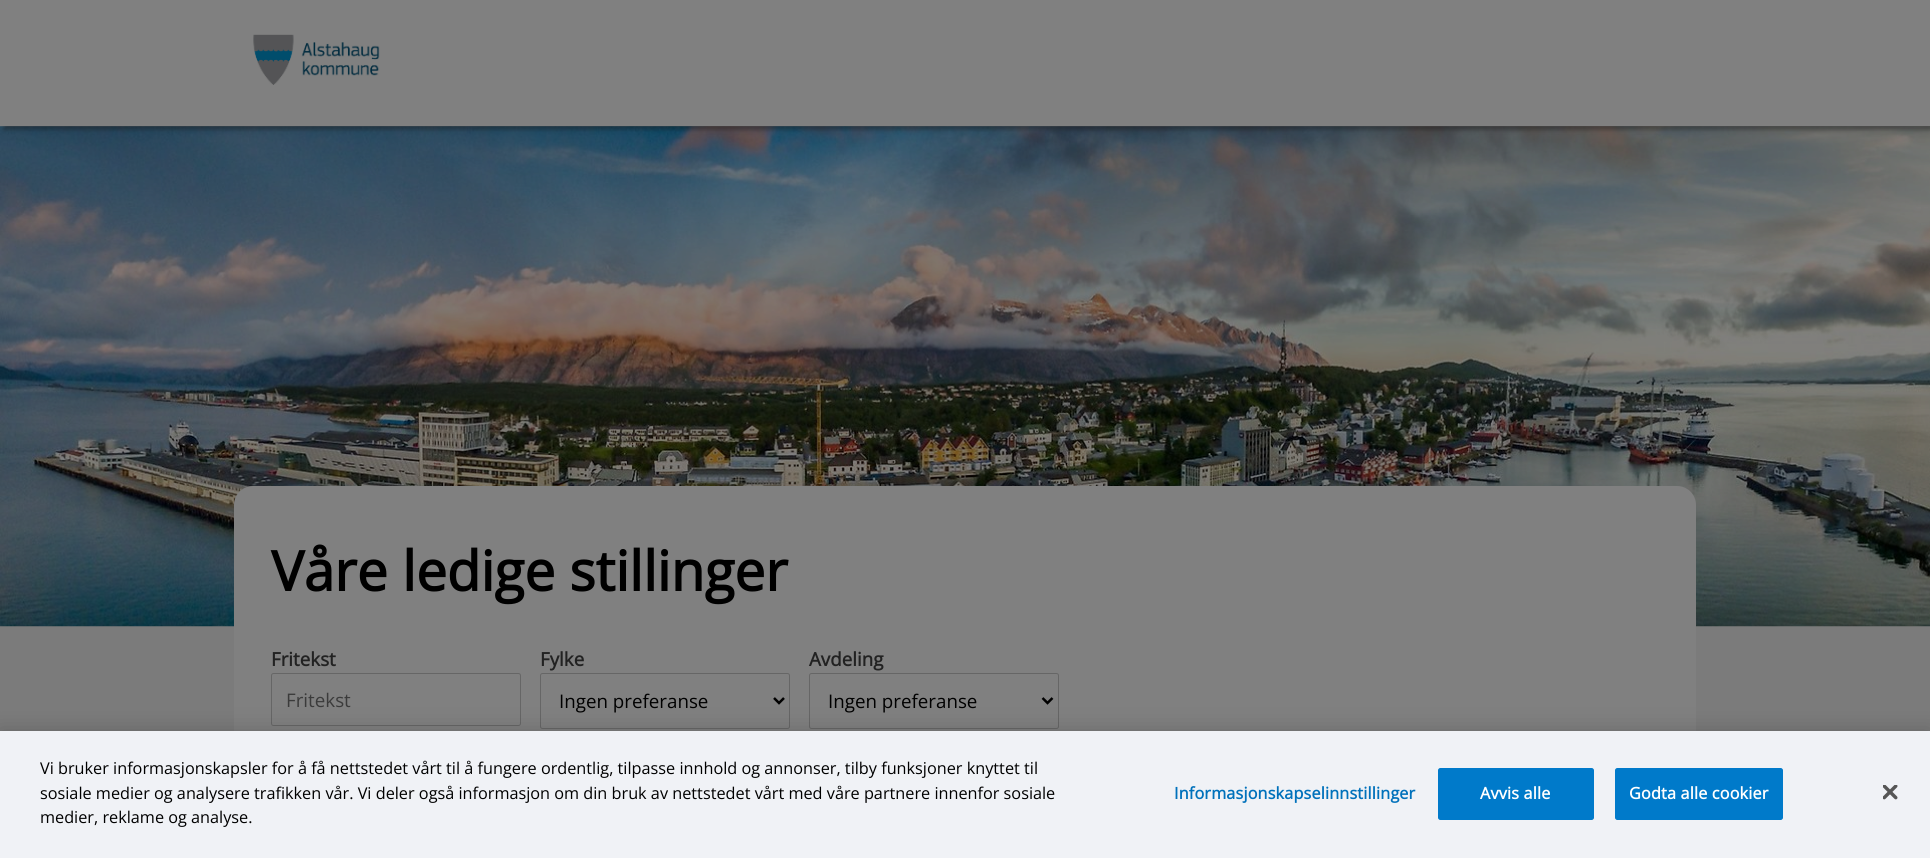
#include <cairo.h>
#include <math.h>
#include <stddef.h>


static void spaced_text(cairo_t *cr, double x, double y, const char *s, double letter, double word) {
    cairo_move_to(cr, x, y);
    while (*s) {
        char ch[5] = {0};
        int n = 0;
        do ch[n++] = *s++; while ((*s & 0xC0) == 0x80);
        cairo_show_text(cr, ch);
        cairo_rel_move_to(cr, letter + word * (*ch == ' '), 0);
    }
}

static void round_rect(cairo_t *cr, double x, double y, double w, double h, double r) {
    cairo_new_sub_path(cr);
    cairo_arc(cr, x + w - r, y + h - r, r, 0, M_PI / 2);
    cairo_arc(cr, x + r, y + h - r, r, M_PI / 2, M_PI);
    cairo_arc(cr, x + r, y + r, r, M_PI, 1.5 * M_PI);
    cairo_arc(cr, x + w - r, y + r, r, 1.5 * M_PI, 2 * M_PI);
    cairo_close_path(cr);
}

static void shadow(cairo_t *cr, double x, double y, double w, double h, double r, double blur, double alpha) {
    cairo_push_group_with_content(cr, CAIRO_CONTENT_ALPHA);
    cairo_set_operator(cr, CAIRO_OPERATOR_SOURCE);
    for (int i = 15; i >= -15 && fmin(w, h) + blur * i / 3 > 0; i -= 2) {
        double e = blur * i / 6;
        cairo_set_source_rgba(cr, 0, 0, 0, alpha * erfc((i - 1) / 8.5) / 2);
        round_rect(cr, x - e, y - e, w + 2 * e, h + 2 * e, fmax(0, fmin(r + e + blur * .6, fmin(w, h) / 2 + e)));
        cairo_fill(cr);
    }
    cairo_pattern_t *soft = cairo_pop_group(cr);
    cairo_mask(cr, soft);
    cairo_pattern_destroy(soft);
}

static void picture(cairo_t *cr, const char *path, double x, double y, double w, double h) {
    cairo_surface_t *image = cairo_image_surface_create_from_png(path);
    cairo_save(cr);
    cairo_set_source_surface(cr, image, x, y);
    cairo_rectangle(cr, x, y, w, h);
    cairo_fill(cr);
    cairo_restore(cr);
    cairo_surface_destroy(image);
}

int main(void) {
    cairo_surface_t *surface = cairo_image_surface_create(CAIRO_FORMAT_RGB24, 1930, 858);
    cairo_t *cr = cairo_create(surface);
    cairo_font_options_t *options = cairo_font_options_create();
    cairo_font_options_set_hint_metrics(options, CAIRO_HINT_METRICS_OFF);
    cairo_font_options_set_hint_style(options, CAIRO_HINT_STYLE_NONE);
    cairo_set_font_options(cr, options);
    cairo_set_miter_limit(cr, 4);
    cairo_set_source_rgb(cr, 0.482, 0.482, 0.482);
    cairo_paint(cr);
    picture(cr, "img2.png", 0, 126, 1930, 501);
    cairo_set_source_rgb(cr, 0.098, 0.098, 0.098);
    shadow(cr, 4, 4, 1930, 126, 0, 2, 0.4);
    cairo_set_source_rgb(cr, 0.502, 0.502, 0.502);
    cairo_rectangle(cr, 0, 0, 1930, 126);
    cairo_fill(cr);
    picture(cr, "img1.png", 253, 34, 127, 51);
    cairo_new_path(cr);
    cairo_move_to(cr, 253, 486);
    cairo_line_to(cr, 1677, 486);
    cairo_curve_to(cr, 1687.5, 486, 1696, 494.5, 1696, 505);
    cairo_line_to(cr, 1696, 626);
    cairo_line_to(cr, 234, 626);
    cairo_line_to(cr, 234, 505);
    cairo_curve_to(cr, 234, 494.5, 242.5, 486, 253, 486);
    cairo_close_path(cr);
    cairo_fill(cr);
    cairo_select_font_face(cr, "Open Sans", CAIRO_FONT_SLANT_NORMAL, CAIRO_FONT_WEIGHT_BOLD);
    cairo_set_font_size(cr, 55);
    cairo_set_source_rgb(cr, 0, 0, 0);
    cairo_move_to(cr, 271, 591);
    cairo_show_text(cr, "Våre ledige stillinger");
    cairo_set_source_rgb(cr, 0.502, 0.502, 0.502);
    cairo_rectangle(cr, 234, 626, 1462, 105);
    cairo_fill(cr);
    cairo_set_font_size(cr, 18.75);
    cairo_set_source_rgb(cr, 0.133, 0.133, 0.133);
    cairo_move_to(cr, 271, 666);
    cairo_show_text(cr, "Fritekst");
    round_rect(cr, 271.5, 673.5, 249, 52, 2);
    cairo_set_source_rgb(cr, 0.4, 0.4, 0.4);
    cairo_set_line_width(cr, 1);
    cairo_stroke(cr);
    cairo_select_font_face(cr, "Open Sans", CAIRO_FONT_SLANT_NORMAL, CAIRO_FONT_WEIGHT_NORMAL);
    cairo_set_source_rgb(cr, 0.231, 0.231, 0.231);
    cairo_move_to(cr, 286, 707);
    cairo_show_text(cr, "Fritekst");
    cairo_select_font_face(cr, "Open Sans", CAIRO_FONT_SLANT_NORMAL, CAIRO_FONT_WEIGHT_BOLD);
    cairo_set_source_rgb(cr, 0.133, 0.133, 0.133);
    cairo_move_to(cr, 540, 666);
    cairo_show_text(cr, "Fylke");
    round_rect(cr, 540.5, 673.5, 249, 55, 2);
    cairo_set_source_rgb(cr, 0.4, 0.4, 0.4);
    cairo_stroke(cr);
    cairo_new_path(cr);
    cairo_move_to(cr, 774, 698);
    cairo_line_to(cr, 779, 703);
    cairo_line_to(cr, 784, 698);
    cairo_set_source_rgb(cr, 0, 0, 0);
    cairo_set_line_width(cr, 2.5);
    cairo_stroke(cr);
    cairo_select_font_face(cr, "Open Sans", CAIRO_FONT_SLANT_NORMAL, CAIRO_FONT_WEIGHT_NORMAL);
    cairo_move_to(cr, 559, 708);
    cairo_show_text(cr, "Ingen preferanse");
    cairo_select_font_face(cr, "Open Sans", CAIRO_FONT_SLANT_NORMAL, CAIRO_FONT_WEIGHT_BOLD);
    cairo_set_source_rgb(cr, 0.133, 0.133, 0.133);
    cairo_move_to(cr, 809, 666);
    cairo_show_text(cr, "Avdeling");
    round_rect(cr, 809.5, 673.5, 249, 55, 2);
    cairo_set_source_rgb(cr, 0.4, 0.4, 0.4);
    cairo_set_line_width(cr, 1);
    cairo_stroke(cr);
    cairo_new_path(cr);
    cairo_move_to(cr, 1042.5, 698);
    cairo_line_to(cr, 1047.5, 703);
    cairo_line_to(cr, 1052.5, 698);
    cairo_set_source_rgb(cr, 0, 0, 0);
    cairo_set_line_width(cr, 2.5);
    cairo_stroke(cr);
    cairo_select_font_face(cr, "Open Sans", CAIRO_FONT_SLANT_NORMAL, CAIRO_FONT_WEIGHT_NORMAL);
    cairo_move_to(cr, 828, 708);
    cairo_show_text(cr, "Ingen preferanse");
    cairo_set_source_rgb(cr, 0, 0, 0);
    shadow(cr, 0, 731, 1930, 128, 0, 11, 0.2);
    cairo_set_source_rgb(cr, 0.941, 0.949, 0.961);
    cairo_rectangle(cr, 0, 731, 1930, 127);
    cairo_fill(cr);
    cairo_set_font_size(cr, 16.25);
    cairo_set_source_rgb(cr, 0, 0, 0);
    cairo_move_to(cr, 40, 774);
    cairo_show_text(cr, "Vi bruker informasjonskapsler for å få nettstedet vårt til å fungere ordentlig, tilpasse innhold og annonser, tilby funksjoner knyttet til");
    cairo_move_to(cr, 40, 799);
    cairo_show_text(cr, "sosiale medier og analysere trafikken vår. Vi deler også informasjon om din bruk av nettstedet vårt med våre partnere innenfor sosiale");
    cairo_move_to(cr, 40, 823);
    cairo_show_text(cr, "medier, reklame og analyse.");
    cairo_select_font_face(cr, "Open Sans", CAIRO_FONT_SLANT_NORMAL, CAIRO_FONT_WEIGHT_BOLD);
    cairo_set_source_rgb(cr, 0, 0.443, 0.733);
    spaced_text(cr, 1174, 799, "Informasjonskapselinnstillinger", 0.15, 0);
    cairo_set_source_rgb(cr, 0, 0.478, 0.792);
    round_rect(cr, 1438.5, 768.5, 155, 51, 2);
    cairo_fill_preserve(cr);
    cairo_set_line_width(cr, 1);
    cairo_stroke(cr);
    cairo_set_source_rgb(cr, 1, 1, 1);
    spaced_text(cr, 1480, 799, "Avvis alle", 0.15, 0);
    cairo_set_source_rgb(cr, 0, 0.478, 0.792);
    round_rect(cr, 1615.5, 768.5, 167, 51, 2);
    cairo_fill_preserve(cr);
    cairo_stroke(cr);
    cairo_set_source_rgb(cr, 1, 1, 1);
    spaced_text(cr, 1629, 799, "Godta alle cookier", 0.15, 0);
    picture(cr, "img3.png", 1883, 785, 15, 15);
    cairo_surface_write_to_png(surface, "page.png");
    cairo_font_options_destroy(options);
    cairo_destroy(cr);
    cairo_surface_destroy(surface);
    return 0;
}
